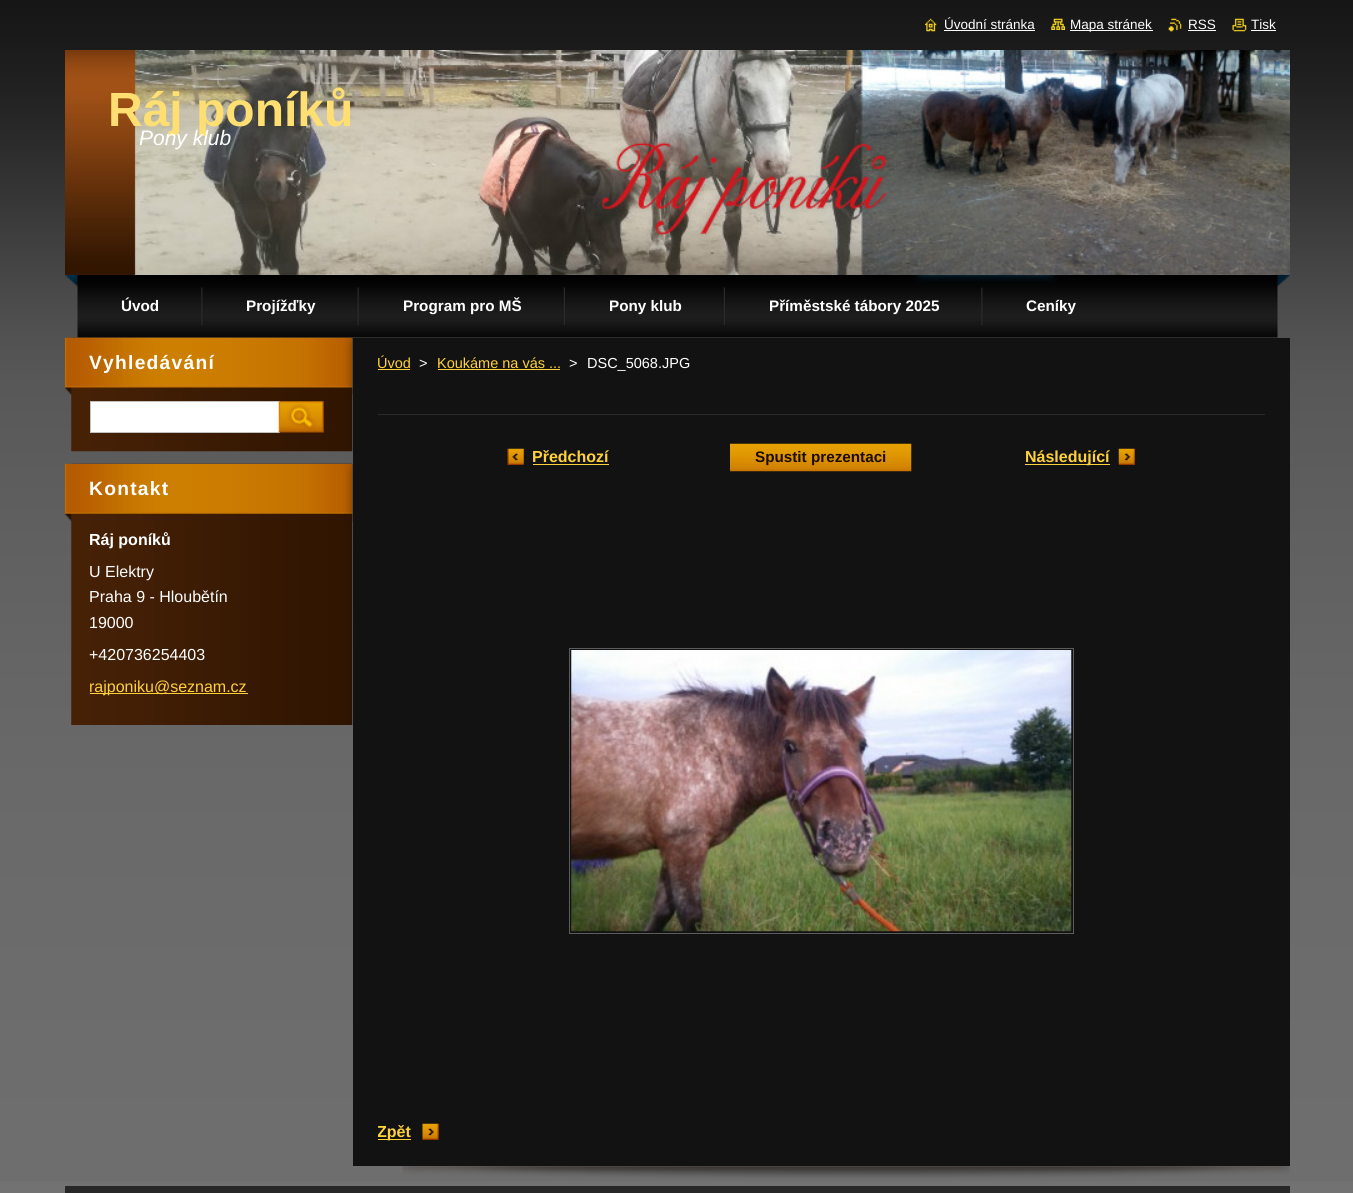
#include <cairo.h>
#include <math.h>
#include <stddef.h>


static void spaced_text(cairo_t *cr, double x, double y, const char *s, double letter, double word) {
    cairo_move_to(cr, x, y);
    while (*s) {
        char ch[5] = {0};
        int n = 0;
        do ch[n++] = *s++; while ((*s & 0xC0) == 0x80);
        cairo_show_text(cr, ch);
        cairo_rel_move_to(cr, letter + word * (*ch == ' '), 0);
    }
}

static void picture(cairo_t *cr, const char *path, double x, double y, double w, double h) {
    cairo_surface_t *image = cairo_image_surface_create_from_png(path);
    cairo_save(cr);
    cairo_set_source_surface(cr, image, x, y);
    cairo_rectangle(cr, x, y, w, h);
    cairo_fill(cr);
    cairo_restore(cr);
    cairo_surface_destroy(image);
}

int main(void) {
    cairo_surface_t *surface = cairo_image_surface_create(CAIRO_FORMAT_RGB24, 1353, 1193);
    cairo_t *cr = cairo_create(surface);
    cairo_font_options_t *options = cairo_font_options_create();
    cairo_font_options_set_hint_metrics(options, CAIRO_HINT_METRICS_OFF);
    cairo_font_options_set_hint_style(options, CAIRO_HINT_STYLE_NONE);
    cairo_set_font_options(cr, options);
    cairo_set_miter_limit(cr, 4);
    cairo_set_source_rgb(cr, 0.447, 0.447, 0.447);
    cairo_paint(cr);
    picture(cr, "img1.png", 0, 0, 1353, 1181);
    picture(cr, "img2.png", 925, 18, 12, 14);
    cairo_select_font_face(cr, "Liberation Sans", CAIRO_FONT_SLANT_NORMAL, CAIRO_FONT_WEIGHT_NORMAL);
    cairo_set_font_size(cr, 13.5);
    cairo_set_source_rgb(cr, 1, 1, 1);
    cairo_move_to(cr, 944, 29);
    cairo_show_text(cr, "Úvodní stránka");
    cairo_rectangle(cr, 944, 30, 91, 1);
    cairo_fill(cr);
    picture(cr, "img3.png", 1051, 18, 14, 12);
    cairo_rectangle(cr, 1070, 30, 83, 1);
    cairo_fill(cr);
    cairo_move_to(cr, 1070, 29);
    cairo_show_text(cr, "Mapa stránek");
    picture(cr, "img4.png", 1168, 18, 14, 14);
    cairo_move_to(cr, 1188, 29);
    cairo_show_text(cr, "RSS");
    cairo_rectangle(cr, 1188, 30, 28, 1);
    cairo_fill(cr);
    picture(cr, "img5.png", 1232, 18, 15, 14);
    cairo_move_to(cr, 1251, 29);
    cairo_show_text(cr, "Tisk");
    cairo_rectangle(cr, 1251, 30, 25, 1);
    cairo_fill(cr);
    picture(cr, "img6.png", 65, 50, 1225, 225);
    cairo_select_font_face(cr, "Liberation Sans", CAIRO_FONT_SLANT_NORMAL, CAIRO_FONT_WEIGHT_BOLD);
    cairo_set_font_size(cr, 48);
    cairo_set_source_rgb(cr, 1, 0.875, 0.443);
    cairo_move_to(cr, 108, 126);
    cairo_show_text(cr, "Ráj poníků");
    cairo_select_font_face(cr, "Liberation Sans", CAIRO_FONT_SLANT_ITALIC, CAIRO_FONT_WEIGHT_NORMAL);
    cairo_set_font_size(cr, 21);
    cairo_set_source_rgb(cr, 1, 1, 1);
    cairo_move_to(cr, 139, 145);
    cairo_show_text(cr, "Pony klub");
    picture(cr, "img7.png", 65, 275, 1225, 63);
    picture(cr, "img8.png", 201, 287, 2, 38);
    cairo_select_font_face(cr, "Liberation Sans", CAIRO_FONT_SLANT_NORMAL, CAIRO_FONT_WEIGHT_BOLD);
    cairo_set_font_size(cr, 15.25);
    cairo_move_to(cr, 121, 311);
    cairo_show_text(cr, "Úvod");
    picture(cr, "img9.png", 357, 287, 2, 38);
    cairo_move_to(cr, 246, 311);
    cairo_show_text(cr, "Projížďky");
    picture(cr, "img10.png", 563, 287, 2, 38);
    cairo_move_to(cr, 403, 311);
    cairo_show_text(cr, "Program pro MŠ");
    picture(cr, "img10.png", 723, 287, 2, 38);
    cairo_move_to(cr, 609, 311);
    cairo_show_text(cr, "Pony klub");
    picture(cr, "img8.png", 981, 287, 2, 38);
    cairo_move_to(cr, 769, 311);
    cairo_show_text(cr, "Příměstské tábory 2025");
    cairo_move_to(cr, 1026, 311);
    cairo_show_text(cr, "Ceníky");
    picture(cr, "img11.png", 71, 337, 282, 115);
    picture(cr, "img12.png", 65, 337, 288, 58);
    cairo_set_font_size(cr, 19.25);
    spaced_text(cr, 89, 369, "Vyhledávání", 1.25, 0);
    cairo_rectangle(cr, 90.5, 401.5, 189, 31);
    cairo_fill_preserve(cr);
    cairo_set_source_rgb(cr, 0.757, 0.757, 0.757);
    cairo_set_line_width(cr, 1);
    cairo_stroke(cr);
    picture(cr, "img13.png", 278, 401, 46, 32);
    picture(cr, "img14.png", 71, 463, 282, 262);
    picture(cr, "img15.png", 65, 463, 288, 59);
    cairo_set_source_rgb(cr, 1, 1, 1);
    spaced_text(cr, 89, 495, "Kontakt", 1.25, 0);
    cairo_set_font_size(cr, 16);
    cairo_move_to(cr, 89, 545);
    cairo_show_text(cr, "Ráj poníků");
    cairo_select_font_face(cr, "Liberation Sans", CAIRO_FONT_SLANT_NORMAL, CAIRO_FONT_WEIGHT_NORMAL);
    cairo_move_to(cr, 89, 577);
    cairo_show_text(cr, "U Elektry");
    cairo_move_to(cr, 89, 602);
    cairo_show_text(cr, "Praha 9 - Hloubětín");
    cairo_move_to(cr, 89, 628);
    cairo_show_text(cr, "19000");
    cairo_move_to(cr, 89, 660);
    cairo_show_text(cr, "+420736254403");
    cairo_set_source_rgb(cr, 1, 0.824, 0.227);
    cairo_rectangle(cr, 90, 693, 55, 1);
    cairo_fill(cr);
    cairo_move_to(cr, 89, 692);
    cairo_show_text(cr, "rajponik");
    cairo_rectangle(cr, 145, 693, 103, 1);
    cairo_fill(cr);
    cairo_move_to(cr, 145, 692);
    cairo_show_text(cr, "u@seznam.cz");
    picture(cr, "img16.png", 402, 1166, 888, 12);
    cairo_set_source_rgb(cr, 0.071, 0.071, 0.071);
    cairo_rectangle(cr, 353, 338, 937, 828);
    cairo_fill(cr);
    cairo_set_font_size(cr, 14.5);
    cairo_set_source_rgb(cr, 1, 0.824, 0.227);
    cairo_move_to(cr, 377, 368);
    cairo_show_text(cr, "Úvod");
    cairo_rectangle(cr, 378, 369, 32, 1);
    cairo_fill(cr);
    cairo_set_source_rgb(cr, 1, 1, 1);
    cairo_move_to(cr, 419, 368);
    cairo_show_text(cr, ">");
    cairo_set_source_rgb(cr, 1, 0.824, 0.227);
    cairo_move_to(cr, 437, 368);
    cairo_show_text(cr, "Koukáme na vás ...");
    cairo_rectangle(cr, 438, 369, 122, 1);
    cairo_fill(cr);
    cairo_set_source_rgb(cr, 1, 1, 1);
    cairo_move_to(cr, 569, 368);
    cairo_show_text(cr, ">");
    cairo_move_to(cr, 587, 368);
    cairo_show_text(cr, "DSC_5068.JPG");
    cairo_set_source_rgb(cr, 0.165, 0.165, 0.165);
    cairo_rectangle(cr, 378, 414, 887, 1);
    cairo_fill(cr);
    picture(cr, "img17.png", 507, 448, 17, 17);
    cairo_select_font_face(cr, "Liberation Sans", CAIRO_FONT_SLANT_NORMAL, CAIRO_FONT_WEIGHT_BOLD);
    cairo_set_font_size(cr, 16);
    cairo_set_source_rgb(cr, 1, 0.824, 0.227);
    cairo_move_to(cr, 532, 462);
    cairo_show_text(cr, "Předchozí");
    cairo_rectangle(cr, 533, 464, 76, 1);
    cairo_fill(cr);
    picture(cr, "img18.png", 730, 443, 182, 29);
    cairo_set_font_size(cr, 15.25);
    cairo_set_source_rgb(cr, 0.11, 0.047, 0);
    cairo_move_to(cr, 755, 462);
    cairo_show_text(cr, "Spustit prezentaci");
    picture(cr, "img19.png", 1118, 448, 17, 17);
    cairo_set_source_rgb(cr, 1, 0.824, 0.227);
    cairo_rectangle(cr, 1025, 464, 85, 1);
    cairo_fill(cr);
    cairo_set_font_size(cr, 16);
    cairo_move_to(cr, 1025, 462);
    cairo_show_text(cr, "Následující");
    cairo_rectangle(cr, 569.5, 648.5, 504, 285);
    cairo_set_source_rgb(cr, 0.361, 0.361, 0.361);
    cairo_stroke(cr);
    picture(cr, "img20.png", 571, 650, 501, 282);
    picture(cr, "img21.png", 422, 1123, 17, 17);
    cairo_set_source_rgb(cr, 1, 0.824, 0.227);
    cairo_rectangle(cr, 378, 1139, 33, 1);
    cairo_fill(cr);
    cairo_save(cr);
    cairo_rectangle(cr, 378, 428, 887, 713);
    cairo_clip(cr);
    cairo_move_to(cr, 377, 1137);
    cairo_show_text(cr, "Zpět");
    cairo_restore(cr);
    cairo_set_source_rgb(cr, 0.153, 0.153, 0.153);
    cairo_rectangle(cr, 65, 1186, 1225, 7);
    cairo_fill(cr);
    cairo_surface_write_to_png(surface, "page.png");
    cairo_font_options_destroy(options);
    cairo_destroy(cr);
    cairo_surface_destroy(surface);
    return 0;
}
